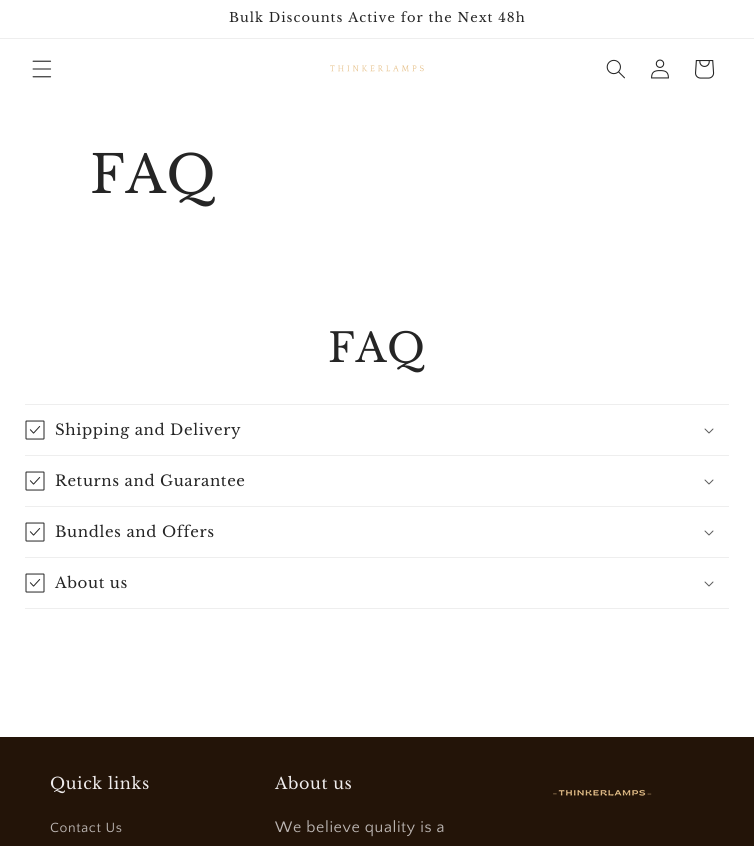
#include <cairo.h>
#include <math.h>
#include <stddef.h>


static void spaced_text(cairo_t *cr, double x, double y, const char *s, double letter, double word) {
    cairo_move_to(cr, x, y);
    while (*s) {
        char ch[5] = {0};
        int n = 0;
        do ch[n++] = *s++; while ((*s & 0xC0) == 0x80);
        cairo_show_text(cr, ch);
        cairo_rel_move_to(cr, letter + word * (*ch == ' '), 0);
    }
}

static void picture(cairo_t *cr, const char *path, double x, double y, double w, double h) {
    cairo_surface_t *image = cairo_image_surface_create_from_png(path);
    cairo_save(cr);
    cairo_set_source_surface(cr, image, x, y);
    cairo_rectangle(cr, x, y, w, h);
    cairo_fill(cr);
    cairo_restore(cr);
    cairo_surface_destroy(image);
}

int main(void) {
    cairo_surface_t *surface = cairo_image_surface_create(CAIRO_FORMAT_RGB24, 754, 846);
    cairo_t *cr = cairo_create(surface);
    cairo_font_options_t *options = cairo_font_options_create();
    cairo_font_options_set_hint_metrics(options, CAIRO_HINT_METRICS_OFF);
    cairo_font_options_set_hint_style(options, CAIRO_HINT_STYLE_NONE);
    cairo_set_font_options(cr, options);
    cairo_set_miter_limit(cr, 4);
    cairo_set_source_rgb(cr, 1, 1, 1);
    cairo_paint(cr);
    cairo_set_source_rgb(cr, 0.933, 0.933, 0.933);
    cairo_rectangle(cr, 0, 38, 754, 1);
    cairo_fill(cr);
    cairo_select_font_face(cr, "Libre Baskerville", CAIRO_FONT_SLANT_NORMAL, CAIRO_FONT_WEIGHT_NORMAL);
    cairo_set_font_size(cr, 13);
    cairo_set_source_rgb(cr, 0.145, 0.145, 0.145);
    spaced_text(cr, 229, 22, "Bulk Discounts Active for the Next 48h", 1, 0);
    picture(cr, "img1.png", 32, 60, 20, 18);
    picture(cr, "img2.png", 330, 65, 94, 7);
    picture(cr, "img3.png", 606, 59, 19, 20);
    picture(cr, "img4.png", 651, 59, 18, 20);
    picture(cr, "img5.png", 695, 60, 20, 19);
    cairo_set_font_size(cr, 52);
    spaced_text(cr, 90, 193, "FAQ", 0.6, 0);
    cairo_set_font_size(cr, 40);
    spaced_text(cr, 328, 362, "FAQ", 0.6, 0);
    cairo_set_source_rgb(cr, 0.933, 0.933, 0.933);
    cairo_rectangle(cr, 25, 404, 704, 1);
    cairo_fill(cr);
    cairo_rectangle(cr, 25, 455, 704, 1);
    cairo_fill(cr);
    picture(cr, "img6.png", 25, 420, 20, 20);
    cairo_set_font_size(cr, 15);
    cairo_set_source_rgb(cr, 0.145, 0.145, 0.145);
    spaced_text(cr, 55, 435, "Shipping and Delivery", 0.6, 0);
    picture(cr, "img7.png", 704, 428, 10, 6);
    cairo_set_source_rgb(cr, 0.933, 0.933, 0.933);
    cairo_rectangle(cr, 25, 506, 704, 1);
    cairo_fill(cr);
    picture(cr, "img6.png", 25, 471, 20, 20);
    cairo_set_source_rgb(cr, 0.145, 0.145, 0.145);
    spaced_text(cr, 55, 486, "Returns and Guarantee", 0.6, 0);
    picture(cr, "img7.png", 704, 479, 10, 6);
    cairo_set_source_rgb(cr, 0.933, 0.933, 0.933);
    cairo_rectangle(cr, 25, 557, 704, 1);
    cairo_fill(cr);
    picture(cr, "img6.png", 25, 522, 20, 20);
    cairo_set_source_rgb(cr, 0.145, 0.145, 0.145);
    spaced_text(cr, 55, 537, "Bundles and Offers", 0.6, 0);
    picture(cr, "img7.png", 704, 530, 10, 6);
    cairo_set_source_rgb(cr, 0.933, 0.933, 0.933);
    cairo_rectangle(cr, 25, 608, 704, 1);
    cairo_fill(cr);
    picture(cr, "img6.png", 25, 573, 20, 20);
    cairo_set_source_rgb(cr, 0.145, 0.145, 0.145);
    spaced_text(cr, 55, 588, "About us", 0.6, 0);
    picture(cr, "img7.png", 704, 581, 10, 6);
    cairo_set_source_rgb(cr, 0.137, 0.082, 0.035);
    cairo_rectangle(cr, 0, 737, 754, 109);
    cairo_fill(cr);
    cairo_set_font_size(cr, 16);
    cairo_set_source_rgb(cr, 0.937, 0.925, 0.925);
    spaced_text(cr, 50, 789, "Quick links", 0.6, 0);
    cairo_select_font_face(cr, "Quattrocento Sans", CAIRO_FONT_SLANT_NORMAL, CAIRO_FONT_WEIGHT_NORMAL);
    cairo_set_font_size(cr, 14);
    cairo_set_source_rgb(cr, 0.737, 0.714, 0.702);
    spaced_text(cr, 50, 832, "Contact Us", 0.6, 0);
    cairo_select_font_face(cr, "Libre Baskerville", CAIRO_FONT_SLANT_NORMAL, CAIRO_FONT_WEIGHT_NORMAL);
    cairo_set_font_size(cr, 16);
    cairo_set_source_rgb(cr, 0.937, 0.925, 0.925);
    spaced_text(cr, 275, 789, "About us", 0.6, 0);
    cairo_select_font_face(cr, "Quattrocento Sans", CAIRO_FONT_SLANT_NORMAL, CAIRO_FONT_WEIGHT_NORMAL);
    cairo_set_source_rgb(cr, 0.737, 0.714, 0.702);
    spaced_text(cr, 275, 832, "We believe quality is a", 0.6, 0);
    picture(cr, "img8.png", 553, 789, 99, 7);
    cairo_surface_write_to_png(surface, "page.png");
    cairo_font_options_destroy(options);
    cairo_destroy(cr);
    cairo_surface_destroy(surface);
    return 0;
}
